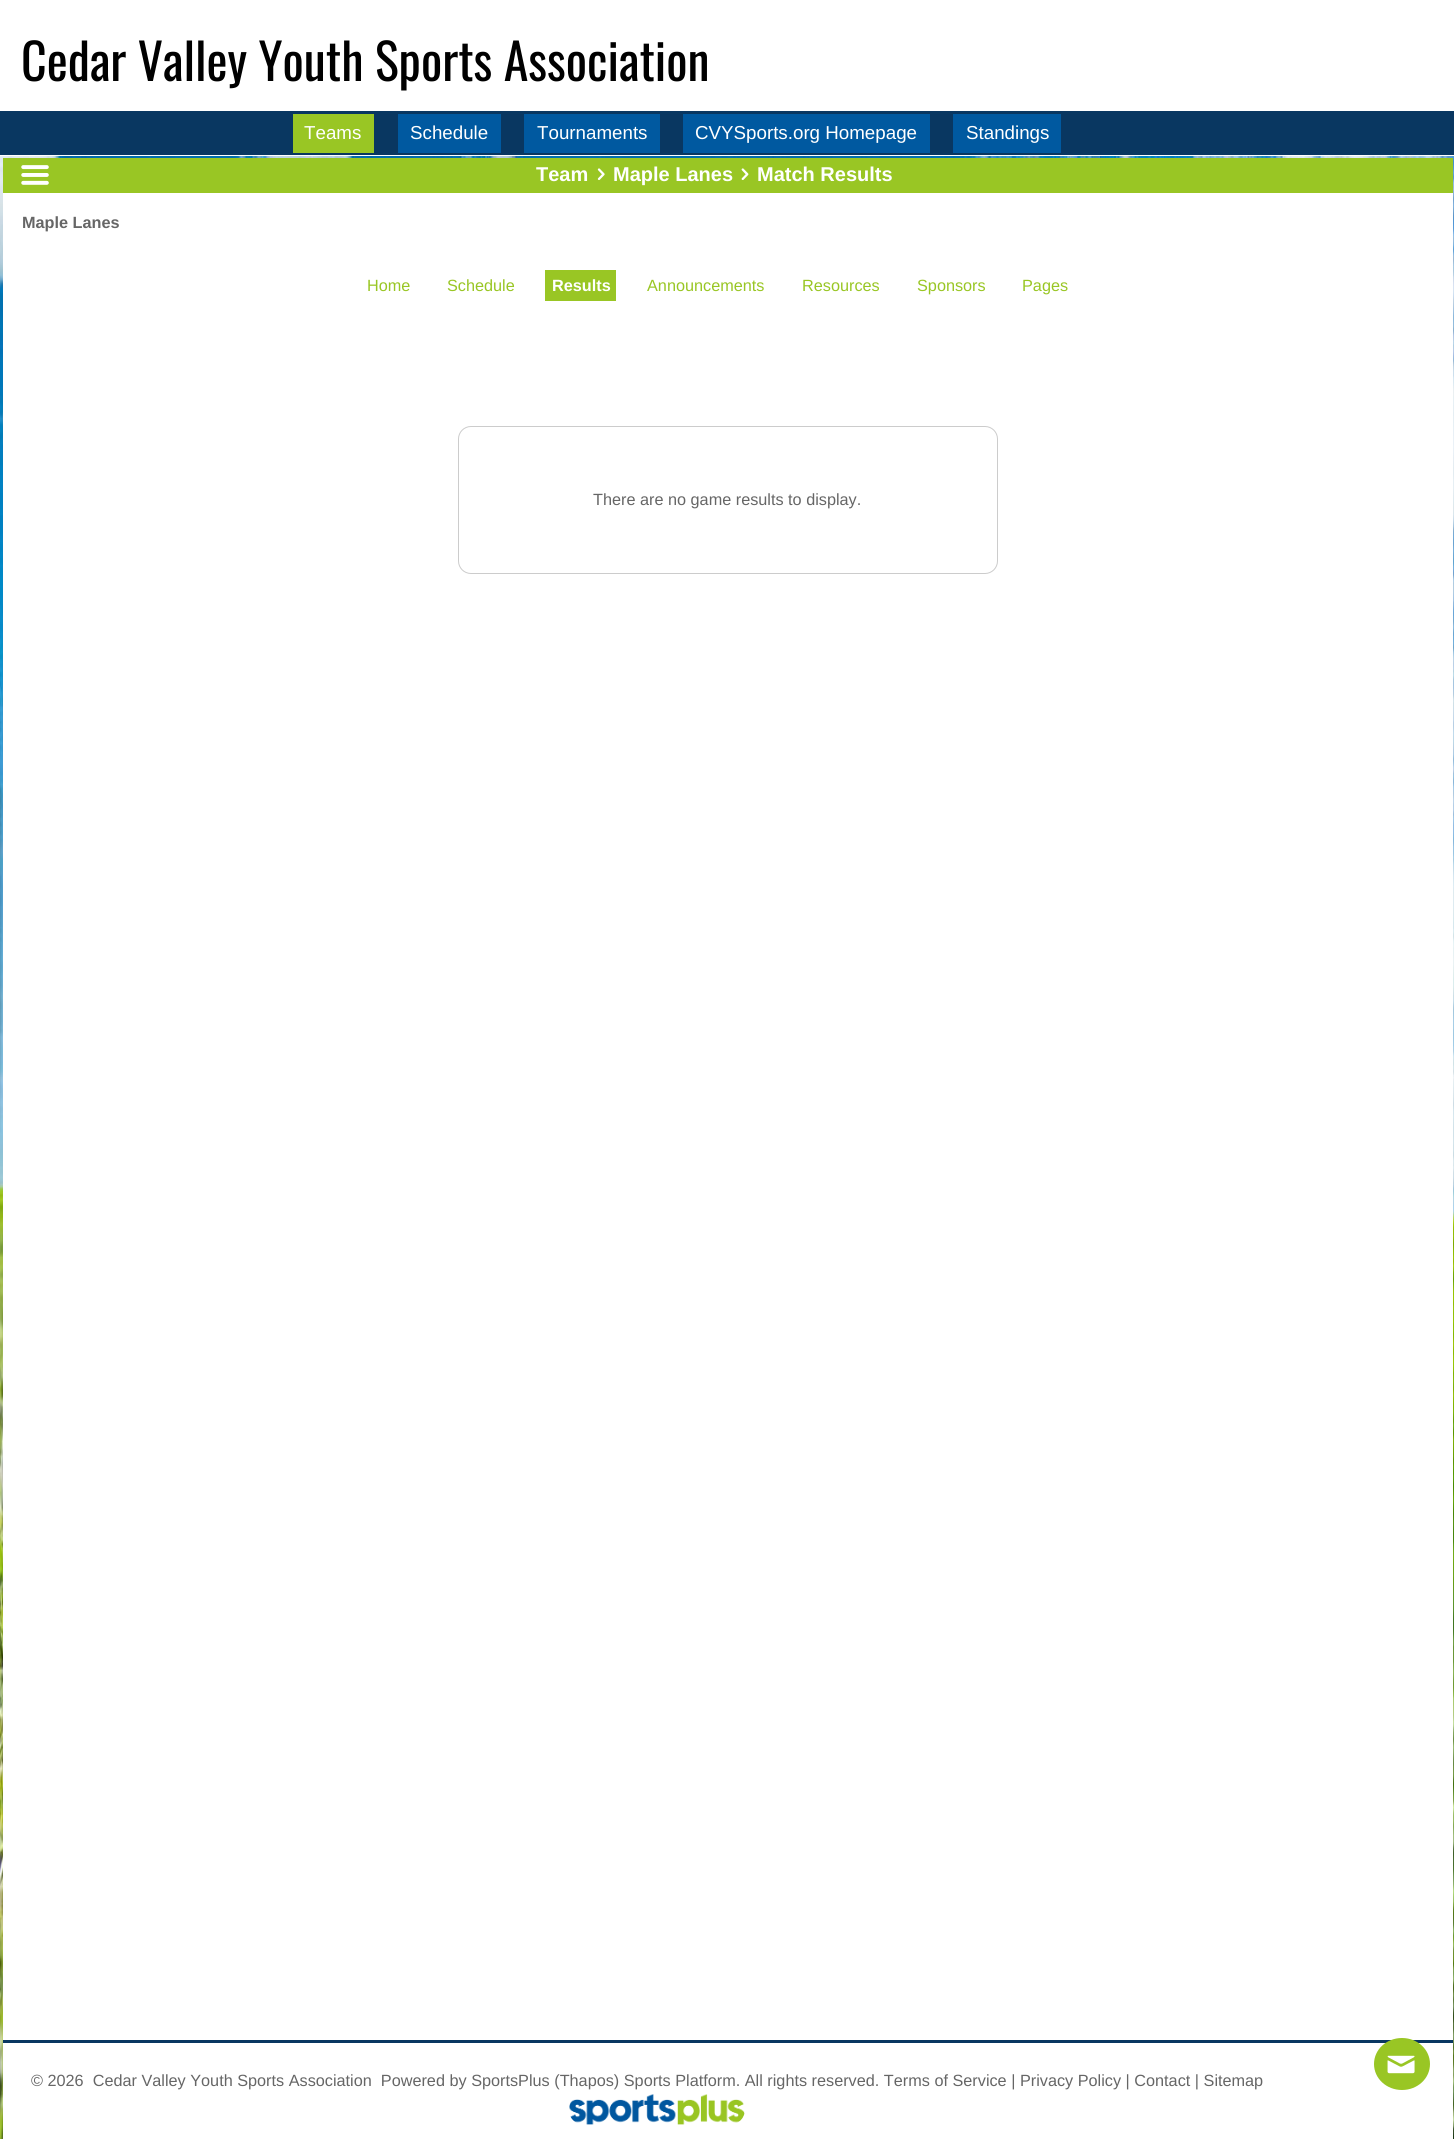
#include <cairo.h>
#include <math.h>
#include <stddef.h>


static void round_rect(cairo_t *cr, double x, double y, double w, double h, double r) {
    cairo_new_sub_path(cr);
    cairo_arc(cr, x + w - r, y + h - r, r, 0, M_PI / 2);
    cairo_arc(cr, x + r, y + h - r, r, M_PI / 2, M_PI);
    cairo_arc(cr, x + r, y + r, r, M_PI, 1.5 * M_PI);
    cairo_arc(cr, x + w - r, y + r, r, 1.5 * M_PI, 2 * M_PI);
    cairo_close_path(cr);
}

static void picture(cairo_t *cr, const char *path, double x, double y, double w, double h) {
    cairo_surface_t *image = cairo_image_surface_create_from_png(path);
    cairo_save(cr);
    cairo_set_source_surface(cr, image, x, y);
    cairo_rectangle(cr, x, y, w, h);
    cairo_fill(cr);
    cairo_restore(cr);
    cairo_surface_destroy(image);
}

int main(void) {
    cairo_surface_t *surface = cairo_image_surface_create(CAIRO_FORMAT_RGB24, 1454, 2139);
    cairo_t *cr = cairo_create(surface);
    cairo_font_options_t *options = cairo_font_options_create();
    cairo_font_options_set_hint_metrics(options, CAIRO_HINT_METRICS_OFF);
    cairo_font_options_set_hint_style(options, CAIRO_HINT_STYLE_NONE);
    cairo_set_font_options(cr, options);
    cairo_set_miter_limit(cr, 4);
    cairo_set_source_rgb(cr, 1, 1, 1);
    cairo_paint(cr);
    cairo_select_font_face(cr, "Oswald", CAIRO_FONT_SLANT_NORMAL, CAIRO_FONT_WEIGHT_NORMAL);
    cairo_set_font_size(cr, 50);
    cairo_set_source_rgb(cr, 0, 0, 0);
    cairo_move_to(cr, 21, 81);
    cairo_show_text(cr, "Cedar Valley Youth Sports Association");
    cairo_set_source_rgb(cr, 0.039, 0.216, 0.38);
    cairo_rectangle(cr, 0, 111, 1454, 44);
    cairo_fill(cr);
    cairo_set_source_rgb(cr, 0.6, 0.776, 0.141);
    cairo_rectangle(cr, 293, 114, 81, 39);
    cairo_fill(cr);
    cairo_select_font_face(cr, "Liberation Sans", CAIRO_FONT_SLANT_NORMAL, CAIRO_FONT_WEIGHT_NORMAL);
    cairo_set_font_size(cr, 18.75);
    cairo_set_source_rgb(cr, 1, 1, 1);
    cairo_move_to(cr, 304, 139);
    cairo_show_text(cr, "Teams");
    cairo_set_source_rgb(cr, 0, 0.349, 0.627);
    cairo_rectangle(cr, 398, 114, 103, 39);
    cairo_fill(cr);
    cairo_set_source_rgb(cr, 1, 1, 1);
    cairo_move_to(cr, 410, 139);
    cairo_show_text(cr, "Schedule");
    cairo_set_source_rgb(cr, 0, 0.349, 0.627);
    cairo_rectangle(cr, 524, 114, 136, 39);
    cairo_fill(cr);
    cairo_set_source_rgb(cr, 1, 1, 1);
    cairo_move_to(cr, 537, 139);
    cairo_show_text(cr, "Tournaments");
    cairo_set_source_rgb(cr, 0, 0.349, 0.627);
    cairo_rectangle(cr, 683, 114, 247, 39);
    cairo_fill(cr);
    cairo_set_source_rgb(cr, 1, 1, 1);
    cairo_move_to(cr, 695, 139);
    cairo_show_text(cr, "CVYSports.org Homepage");
    cairo_set_source_rgb(cr, 0, 0.349, 0.627);
    cairo_rectangle(cr, 953, 114, 108, 39);
    cairo_fill(cr);
    cairo_set_source_rgb(cr, 1, 1, 1);
    cairo_move_to(cr, 966, 139);
    cairo_show_text(cr, "Standings");
    picture(cr, "img1.png", 0, 156, 1454, 1983);
    cairo_rectangle(cr, 3, 193, 1450, 1847);
    cairo_fill(cr);
    cairo_set_source_rgb(cr, 0.6, 0.776, 0.141);
    cairo_rectangle(cr, 3, 158, 1450, 35);
    cairo_fill(cr);
    picture(cr, "img2.png", 21, 165, 28, 20);
    cairo_select_font_face(cr, "Liberation Sans", CAIRO_FONT_SLANT_NORMAL, CAIRO_FONT_WEIGHT_BOLD);
    cairo_set_font_size(cr, 20);
    cairo_set_source_rgb(cr, 1, 1, 1);
    cairo_move_to(cr, 536, 181);
    cairo_show_text(cr, "Team");
    picture(cr, "img3.png", 597, 168, 8, 12);
    cairo_move_to(cr, 613, 181);
    cairo_show_text(cr, "Maple Lanes");
    picture(cr, "img4.png", 741, 168, 8, 12);
    cairo_move_to(cr, 757, 181);
    cairo_show_text(cr, "Match Results");
    cairo_set_font_size(cr, 16.25);
    cairo_set_source_rgb(cr, 0.4, 0.4, 0.4);
    cairo_move_to(cr, 22, 228);
    cairo_show_text(cr, "Maple Lanes");
    cairo_select_font_face(cr, "Liberation Sans", CAIRO_FONT_SLANT_NORMAL, CAIRO_FONT_WEIGHT_NORMAL);
    cairo_set_source_rgb(cr, 0.6, 0.776, 0.141);
    cairo_move_to(cr, 367, 291);
    cairo_show_text(cr, "Home");
    cairo_move_to(cr, 447, 291);
    cairo_show_text(cr, "Schedule");
    cairo_rectangle(cr, 545, 270, 71, 31);
    cairo_fill(cr);
    cairo_select_font_face(cr, "Liberation Sans", CAIRO_FONT_SLANT_NORMAL, CAIRO_FONT_WEIGHT_BOLD);
    cairo_set_source_rgb(cr, 1, 1, 1);
    cairo_move_to(cr, 552, 291);
    cairo_show_text(cr, "Results");
    cairo_select_font_face(cr, "Liberation Sans", CAIRO_FONT_SLANT_NORMAL, CAIRO_FONT_WEIGHT_NORMAL);
    cairo_set_source_rgb(cr, 0.6, 0.776, 0.141);
    cairo_move_to(cr, 647, 291);
    cairo_show_text(cr, "Announcements");
    cairo_move_to(cr, 802, 291);
    cairo_show_text(cr, "Resources");
    cairo_move_to(cr, 917, 291);
    cairo_show_text(cr, "Sponsors");
    cairo_move_to(cr, 1022, 291);
    cairo_show_text(cr, "Pages");
    round_rect(cr, 458.5, 426.5, 539, 147, 12.5);
    cairo_set_source_rgb(cr, 0.8, 0.8, 0.8);
    cairo_set_line_width(cr, 1);
    cairo_stroke(cr);
    cairo_set_source_rgb(cr, 0.4, 0.4, 0.4);
    cairo_move_to(cr, 593, 505);
    cairo_show_text(cr, "There are no game results to display.");
    cairo_set_source_rgb(cr, 1, 1, 1);
    cairo_rectangle(cr, 3, 2043, 1450, 96);
    cairo_fill(cr);
    cairo_set_source_rgb(cr, 0.039, 0.216, 0.38);
    cairo_rectangle(cr, 3, 2040, 1450, 3);
    cairo_fill(cr);
    cairo_set_source_rgb(cr, 0.4, 0.4, 0.4);
    cairo_move_to(cr, 31, 2086);
    cairo_show_text(cr, "© 2026  Cedar Valley Youth Sports Association  Powered by SportsPlus (Thapos) Sports Platform. All rights reserved. Terms of Service | Privacy Policy | Contact | Sitemap");
    picture(cr, "img5.png", 569, 2094, 176, 31);
    cairo_set_source_rgb(cr, 0.6, 0.776, 0.141);
    cairo_new_path(cr);
    cairo_move_to(cr, 1402, 2038);
    cairo_curve_to(cr, 1417.5, 2038, 1430, 2049.5, 1430, 2064);
    cairo_curve_to(cr, 1430, 2078.5, 1417.5, 2090, 1402, 2090);
    cairo_curve_to(cr, 1386.5, 2090, 1374, 2078.5, 1374, 2064);
    cairo_curve_to(cr, 1374, 2049.5, 1386.5, 2038, 1402, 2038);
    cairo_close_path(cr);
    cairo_fill(cr);
    picture(cr, "img6.png", 1387, 2055, 28, 19);
    cairo_surface_write_to_png(surface, "page.png");
    cairo_font_options_destroy(options);
    cairo_destroy(cr);
    cairo_surface_destroy(surface);
    return 0;
}
